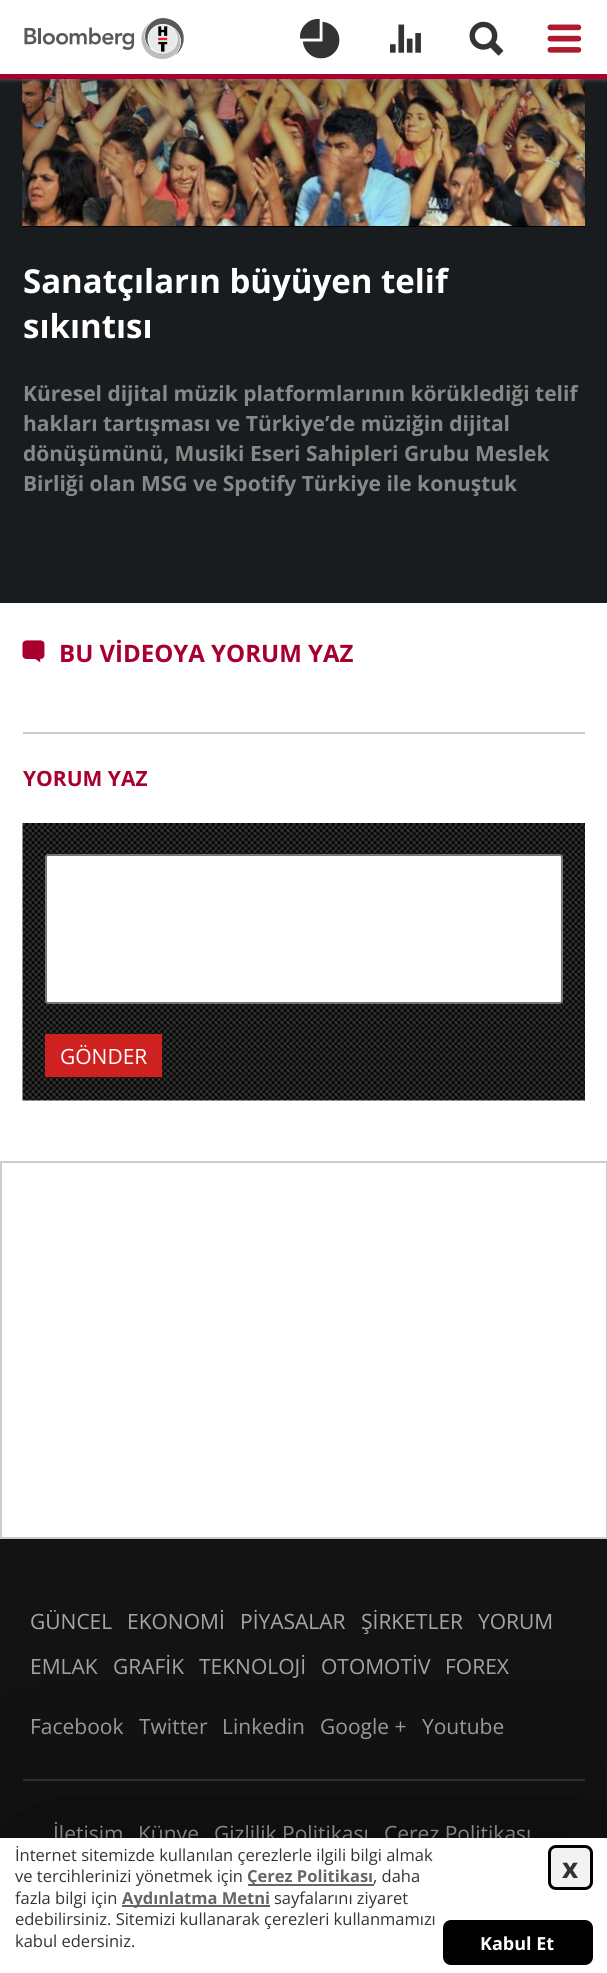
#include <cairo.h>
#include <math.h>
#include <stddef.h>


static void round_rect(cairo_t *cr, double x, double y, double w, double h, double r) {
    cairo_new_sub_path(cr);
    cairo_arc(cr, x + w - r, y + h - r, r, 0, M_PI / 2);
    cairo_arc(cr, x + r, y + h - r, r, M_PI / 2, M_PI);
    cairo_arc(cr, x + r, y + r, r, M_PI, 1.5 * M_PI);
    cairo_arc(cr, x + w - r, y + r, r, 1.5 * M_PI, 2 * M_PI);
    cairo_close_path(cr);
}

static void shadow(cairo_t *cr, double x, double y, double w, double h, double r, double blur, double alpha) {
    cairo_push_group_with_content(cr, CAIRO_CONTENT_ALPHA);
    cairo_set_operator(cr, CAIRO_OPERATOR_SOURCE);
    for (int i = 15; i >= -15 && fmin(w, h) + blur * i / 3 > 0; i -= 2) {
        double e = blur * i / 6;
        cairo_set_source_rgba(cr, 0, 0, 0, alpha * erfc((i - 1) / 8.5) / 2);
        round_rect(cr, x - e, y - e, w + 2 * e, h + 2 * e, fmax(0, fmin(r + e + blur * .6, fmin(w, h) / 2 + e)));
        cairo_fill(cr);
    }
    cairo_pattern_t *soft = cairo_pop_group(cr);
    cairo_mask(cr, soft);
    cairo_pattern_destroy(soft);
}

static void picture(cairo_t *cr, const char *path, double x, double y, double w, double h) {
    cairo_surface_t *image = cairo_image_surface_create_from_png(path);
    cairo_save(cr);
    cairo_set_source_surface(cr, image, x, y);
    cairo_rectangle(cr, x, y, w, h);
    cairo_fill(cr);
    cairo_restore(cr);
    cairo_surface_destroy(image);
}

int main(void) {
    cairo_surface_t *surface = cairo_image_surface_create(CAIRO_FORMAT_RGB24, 607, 1973);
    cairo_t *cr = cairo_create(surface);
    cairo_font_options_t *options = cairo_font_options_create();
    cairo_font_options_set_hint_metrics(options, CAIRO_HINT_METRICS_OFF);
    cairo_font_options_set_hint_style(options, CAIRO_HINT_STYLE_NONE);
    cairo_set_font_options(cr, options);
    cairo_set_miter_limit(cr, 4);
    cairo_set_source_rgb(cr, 1, 1, 1);
    cairo_paint(cr);
    cairo_set_source_rgb(cr, 0.098, 0.11, 0.122);
    cairo_rectangle(cr, 0, 79, 607, 524);
    cairo_fill(cr);
    picture(cr, "img6.png", 22, 79, 563, 147);
    cairo_set_source_rgb(cr, 0.506, 0.506, 0.506);
    shadow(cr, 0, 0, 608, 78, 0, 3, 1);
    cairo_set_source_rgb(cr, 1, 1, 1);
    cairo_rectangle(cr, 0, 0, 607, 74);
    cairo_fill(cr);
    cairo_set_source_rgb(cr, 0.655, 0, 0.184);
    cairo_rectangle(cr, 0, 74, 607, 5);
    cairo_fill(cr);
    picture(cr, "img1.png", 24, 18, 160, 41);
    picture(cr, "img2.png", 300, 18, 40, 41);
    picture(cr, "img3.png", 390, 24, 31, 29);
    picture(cr, "img4.png", 469, 21, 35, 35);
    picture(cr, "img5.png", 547, 24, 35, 29);
    cairo_set_source_rgb(cr, 0, 0, 0);
    cairo_rectangle(cr, 23, 226, 562, 1);
    cairo_fill(cr);
    cairo_select_font_face(cr, "Open Sans", CAIRO_FONT_SLANT_NORMAL, CAIRO_FONT_WEIGHT_BOLD);
    cairo_set_font_size(cr, 33);
    cairo_set_source_rgb(cr, 1, 1, 1);
    cairo_move_to(cr, 23, 293);
    cairo_show_text(cr, "Sanatçıların büyüyen telif");
    cairo_move_to(cr, 23, 338);
    cairo_show_text(cr, "sıkıntısı");
    cairo_set_font_size(cr, 21);
    cairo_set_source_rgb(cr, 0.533, 0.533, 0.533);
    cairo_move_to(cr, 23, 401);
    cairo_show_text(cr, "Küresel dijital müzik platformlarının körüklediği telif");
    cairo_move_to(cr, 23, 431);
    cairo_show_text(cr, "hakları tartışması ve Türkiye’de müziğin dijital");
    cairo_move_to(cr, 23, 461);
    cairo_show_text(cr, "dönüşümünü, Musiki Eseri Sahipleri Grubu Meslek");
    cairo_move_to(cr, 23, 491);
    cairo_show_text(cr, "Birliği olan MSG ve Spotify Türkiye ile konuştuk");
    picture(cr, "img7.png", 22, 640, 23, 23);
    cairo_set_font_size(cr, 24);
    cairo_set_source_rgb(cr, 0.655, 0, 0.184);
    cairo_move_to(cr, 59, 662);
    cairo_show_text(cr, "BU VİDEOYA YORUM YAZ");
    cairo_set_source_rgb(cr, 0.8, 0.8, 0.8);
    cairo_rectangle(cr, 23, 732, 562, 2);
    cairo_fill(cr);
    cairo_set_font_size(cr, 21);
    cairo_set_source_rgb(cr, 0.655, 0, 0.184);
    cairo_move_to(cr, 23, 786);
    cairo_show_text(cr, "YORUM YAZ");
    picture(cr, "img8.png", 22, 823, 563, 278);
    cairo_set_source_rgb(cr, 1, 1, 1);
    round_rect(cr, 46, 855, 516, 148, 2);
    cairo_fill_preserve(cr);
    cairo_set_source_rgb(cr, 0.463, 0.463, 0.463);
    cairo_stroke(cr);
    cairo_set_source_rgb(cr, 0.816, 0.129, 0.129);
    cairo_rectangle(cr, 45, 1034, 117, 43);
    cairo_fill(cr);
    cairo_select_font_face(cr, "Open Sans", CAIRO_FONT_SLANT_NORMAL, CAIRO_FONT_WEIGHT_NORMAL);
    cairo_set_source_rgb(cr, 1, 1, 1);
    cairo_move_to(cr, 60, 1064);
    cairo_show_text(cr, "GÖNDER");
    cairo_rectangle(cr, 1, 1162, 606, 376);
    cairo_set_source_rgb(cr, 0.8, 0.8, 0.8);
    cairo_stroke(cr);
    cairo_set_source_rgb(cr, 0.075, 0.075, 0.075);
    cairo_rectangle(cr, 0, 1539, 607, 299);
    cairo_fill(cr);
    cairo_set_source_rgb(cr, 0.655, 0.655, 0.655);
    cairo_move_to(cr, 30, 1629);
    cairo_show_text(cr, "GÜNCEL");
    cairo_move_to(cr, 127, 1629);
    cairo_show_text(cr, "EKONOMİ");
    cairo_move_to(cr, 240, 1629);
    cairo_show_text(cr, "PİYASALAR");
    cairo_move_to(cr, 361, 1629);
    cairo_show_text(cr, "ŞİRKETLER");
    cairo_move_to(cr, 478, 1629);
    cairo_show_text(cr, "YORUM");
    cairo_move_to(cr, 30, 1674);
    cairo_show_text(cr, "EMLAK");
    cairo_move_to(cr, 113, 1674);
    cairo_show_text(cr, "GRAFİK");
    cairo_move_to(cr, 199, 1674);
    cairo_show_text(cr, "TEKNOLOJİ");
    cairo_move_to(cr, 321, 1674);
    cairo_show_text(cr, "OTOMOTİV");
    cairo_move_to(cr, 445, 1674);
    cairo_show_text(cr, "FOREX");
    cairo_move_to(cr, 30, 1734);
    cairo_show_text(cr, "Facebook");
    cairo_move_to(cr, 139, 1734);
    cairo_show_text(cr, "Twitter");
    cairo_move_to(cr, 222, 1734);
    cairo_show_text(cr, "Linkedin");
    cairo_move_to(cr, 320, 1734);
    cairo_show_text(cr, "Google +");
    cairo_move_to(cr, 422, 1734);
    cairo_show_text(cr, "Youtube");
    cairo_set_source_rgb(cr, 0.2, 0.2, 0.2);
    cairo_rectangle(cr, 23, 1779, 562, 2);
    cairo_fill(cr);
    cairo_set_source_rgb(cr, 0.655, 0.655, 0.655);
    cairo_move_to(cr, 53, 1841);
    cairo_show_text(cr, "İletişim");
    cairo_move_to(cr, 138, 1841);
    cairo_show_text(cr, "Künye");
    cairo_move_to(cr, 214, 1841);
    cairo_show_text(cr, "Gizlilik Politikası");
    cairo_move_to(cr, 384, 1841);
    cairo_show_text(cr, "Çerez Politikası");
    cairo_set_source_rgb(cr, 0, 0, 0);
    shadow(cr, 15, 1853, 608, 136, 0, 116, 0.5);
    cairo_set_source_rgb(cr, 1, 1, 1);
    cairo_rectangle(cr, 0, 1838, 607, 135);
    cairo_fill(cr);
    cairo_set_font_size(cr, 16.5);
    cairo_set_source_rgb(cr, 0.2, 0.2, 0.2);
    cairo_move_to(cr, 15, 1861);
    cairo_show_text(cr, "İnternet sitemizde kullanılan çerezlerle ilgili bilgi almak");
    cairo_move_to(cr, 15, 1882);
    cairo_show_text(cr, "ve tercihlerinizi yönetmek için");
    cairo_set_source_rgb(cr, 0.4, 0.4, 0.4);
    cairo_rectangle(cr, 248, 1884, 126, 2);
    cairo_fill(cr);
    cairo_select_font_face(cr, "Open Sans", CAIRO_FONT_SLANT_NORMAL, CAIRO_FONT_WEIGHT_BOLD);
    cairo_move_to(cr, 247, 1882);
    cairo_show_text(cr, "Çerez Politikası");
    cairo_select_font_face(cr, "Open Sans", CAIRO_FONT_SLANT_NORMAL, CAIRO_FONT_WEIGHT_NORMAL);
    cairo_set_source_rgb(cr, 0.2, 0.2, 0.2);
    cairo_move_to(cr, 373, 1882);
    cairo_show_text(cr, ", daha");
    cairo_move_to(cr, 15, 1904);
    cairo_show_text(cr, "fazla bilgi için");
    cairo_set_source_rgb(cr, 0.4, 0.4, 0.4);
    cairo_rectangle(cr, 122, 1905, 148, 2);
    cairo_fill(cr);
    cairo_select_font_face(cr, "Open Sans", CAIRO_FONT_SLANT_NORMAL, CAIRO_FONT_WEIGHT_BOLD);
    cairo_move_to(cr, 122, 1904);
    cairo_show_text(cr, "Aydınlatma Metni");
    cairo_select_font_face(cr, "Open Sans", CAIRO_FONT_SLANT_NORMAL, CAIRO_FONT_WEIGHT_NORMAL);
    cairo_set_source_rgb(cr, 0.2, 0.2, 0.2);
    cairo_move_to(cr, 274, 1904);
    cairo_show_text(cr, "sayfalarını ziyaret");
    cairo_move_to(cr, 15, 1925);
    cairo_show_text(cr, "edebilirsiniz. Sitemizi kullanarak çerezleri kullanmamızı");
    cairo_move_to(cr, 15, 1947);
    cairo_show_text(cr, "kabul edersiniz.");
    cairo_set_source_rgb(cr, 0.949, 0.949, 0.949);
    round_rect(cr, 549.5, 1846.5, 42, 42, 6.5);
    cairo_fill_preserve(cr);
    cairo_set_source_rgb(cr, 0, 0, 0);
    cairo_set_line_width(cr, 3);
    cairo_stroke(cr);
    cairo_select_font_face(cr, "Open Sans", CAIRO_FONT_SLANT_NORMAL, CAIRO_FONT_WEIGHT_BOLD);
    cairo_set_font_size(cr, 28);
    cairo_set_source_rgb(cr, 0.2, 0.2, 0.2);
    cairo_move_to(cr, 562, 1878);
    cairo_show_text(cr, "x");
    cairo_set_source_rgb(cr, 0, 0, 0);
    round_rect(cr, 443, 1920, 150, 45, 8);
    cairo_fill(cr);
    cairo_set_font_size(cr, 18);
    cairo_set_source_rgb(cr, 1, 1, 1);
    cairo_move_to(cr, 480, 1950);
    cairo_show_text(cr, "Kabul Et");
    cairo_surface_write_to_png(surface, "page.png");
    cairo_font_options_destroy(options);
    cairo_destroy(cr);
    cairo_surface_destroy(surface);
    return 0;
}
